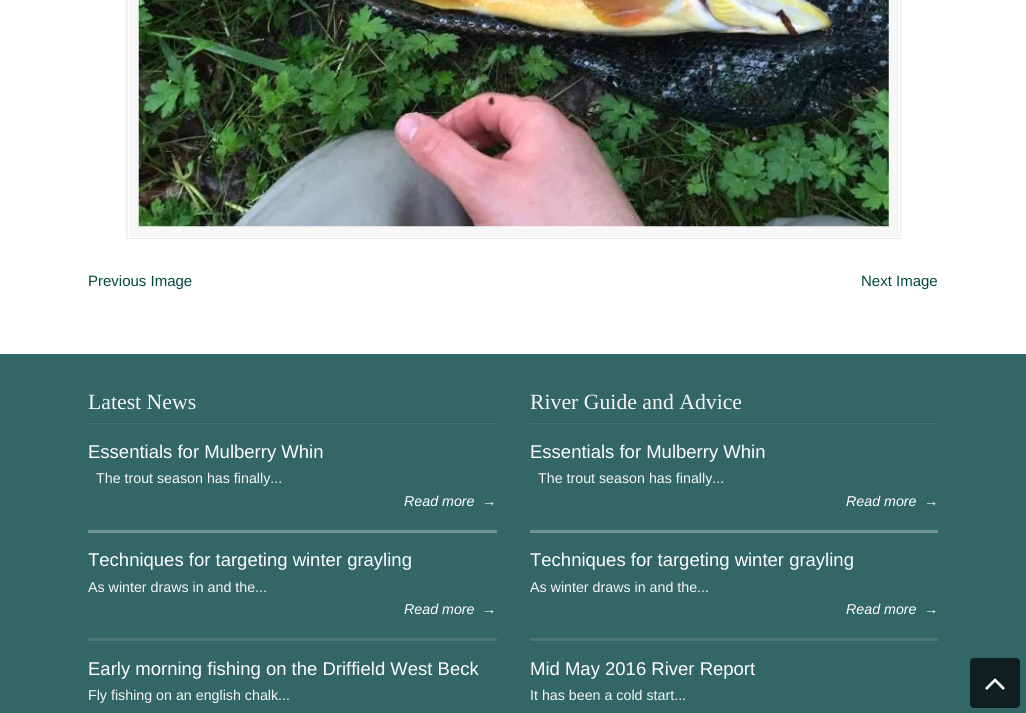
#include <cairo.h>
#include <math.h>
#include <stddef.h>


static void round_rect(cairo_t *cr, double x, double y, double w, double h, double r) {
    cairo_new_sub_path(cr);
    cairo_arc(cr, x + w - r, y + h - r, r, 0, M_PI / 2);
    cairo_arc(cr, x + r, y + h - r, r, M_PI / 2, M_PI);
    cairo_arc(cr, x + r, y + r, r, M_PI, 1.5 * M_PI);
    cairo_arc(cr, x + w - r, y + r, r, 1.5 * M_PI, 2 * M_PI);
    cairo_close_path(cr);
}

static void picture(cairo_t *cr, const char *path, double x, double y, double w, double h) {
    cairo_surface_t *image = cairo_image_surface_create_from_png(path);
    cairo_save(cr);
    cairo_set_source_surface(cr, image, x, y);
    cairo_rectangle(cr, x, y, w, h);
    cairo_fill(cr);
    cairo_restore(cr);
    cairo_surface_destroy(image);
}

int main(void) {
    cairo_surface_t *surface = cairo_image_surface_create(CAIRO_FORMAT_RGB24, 1026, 713);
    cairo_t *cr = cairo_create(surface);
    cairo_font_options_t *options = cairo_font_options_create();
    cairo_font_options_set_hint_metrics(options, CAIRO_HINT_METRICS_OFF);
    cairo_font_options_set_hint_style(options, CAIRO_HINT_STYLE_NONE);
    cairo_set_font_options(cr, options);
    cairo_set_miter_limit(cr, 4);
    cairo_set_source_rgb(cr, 1, 1, 1);
    cairo_paint(cr);
    cairo_set_source_rgb(cr, 0.965, 0.965, 0.965);
    cairo_rectangle(cr, 127, 0, 772, 238);
    cairo_fill(cr);
    cairo_rectangle(cr, 126.5, -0.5, 774, 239);
    cairo_set_source_rgb(cr, 0.918, 0.918, 0.918);
    cairo_set_line_width(cr, 1);
    cairo_stroke(cr);
    cairo_rectangle(cr, 128.5, -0.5, 771, 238);
    cairo_set_source_rgb(cr, 1, 1, 1);
    cairo_stroke(cr);
    picture(cr, "img1.png", 138, 0, 751, 227);
    cairo_select_font_face(cr, "Liberation Sans", CAIRO_FONT_SLANT_NORMAL, CAIRO_FONT_WEIGHT_NORMAL);
    cairo_set_font_size(cr, 15);
    cairo_set_source_rgb(cr, 0.008, 0.282, 0.247);
    cairo_move_to(cr, 88, 286);
    cairo_show_text(cr, "Previous Image");
    cairo_move_to(cr, 861, 286);
    cairo_show_text(cr, "Next Image");
    cairo_set_source_rgb(cr, 0.2, 0.4, 0.4);
    cairo_rectangle(cr, 0, 354, 1026, 359);
    cairo_fill(cr);
    picture(cr, "img2.png", 88, 422, 409, 2);
    cairo_select_font_face(cr, "Liberation Serif", CAIRO_FONT_SLANT_NORMAL, CAIRO_FONT_WEIGHT_NORMAL);
    cairo_set_font_size(cr, 21.75);
    cairo_set_source_rgb(cr, 0.961, 0.961, 0.961);
    cairo_move_to(cr, 88, 409);
    cairo_show_text(cr, "Latest News");
    cairo_set_source_rgb(cr, 0.439, 0.58, 0.58);
    cairo_rectangle(cr, 88, 530, 409, 3);
    cairo_fill(cr);
    cairo_select_font_face(cr, "Liberation Sans", CAIRO_FONT_SLANT_NORMAL, CAIRO_FONT_WEIGHT_NORMAL);
    cairo_set_font_size(cr, 18.5);
    cairo_set_source_rgb(cr, 1, 1, 1);
    cairo_move_to(cr, 88, 458);
    cairo_show_text(cr, "Essentials for Mulberry Whin");
    cairo_set_font_size(cr, 14.25);
    cairo_set_source_rgb(cr, 0.961, 0.961, 0.961);
    cairo_move_to(cr, 96, 483);
    cairo_show_text(cr, "The trout season has finally...");
    cairo_select_font_face(cr, "Liberation Sans", CAIRO_FONT_SLANT_ITALIC, CAIRO_FONT_WEIGHT_NORMAL);
    cairo_set_source_rgb(cr, 1, 1, 1);
    cairo_move_to(cr, 404, 506);
    cairo_show_text(cr, "Read more");
    cairo_select_font_face(cr, "Liberation Sans", CAIRO_FONT_SLANT_NORMAL, CAIRO_FONT_WEIGHT_NORMAL);
    cairo_move_to(cr, 482, 506);
    cairo_show_text(cr, "→");
    cairo_set_source_rgb(cr, 0.298, 0.463, 0.463);
    cairo_rectangle(cr, 88, 638, 409, 3);
    cairo_fill(cr);
    cairo_set_font_size(cr, 18.5);
    cairo_set_source_rgb(cr, 1, 1, 1);
    cairo_move_to(cr, 88, 566);
    cairo_show_text(cr, "Techniques for targeting winter grayling");
    cairo_set_font_size(cr, 14.25);
    cairo_set_source_rgb(cr, 0.961, 0.961, 0.961);
    cairo_move_to(cr, 88, 592);
    cairo_show_text(cr, "As winter draws in and the...");
    cairo_select_font_face(cr, "Liberation Sans", CAIRO_FONT_SLANT_ITALIC, CAIRO_FONT_WEIGHT_NORMAL);
    cairo_set_source_rgb(cr, 1, 1, 1);
    cairo_move_to(cr, 404, 614);
    cairo_show_text(cr, "Read more");
    cairo_select_font_face(cr, "Liberation Sans", CAIRO_FONT_SLANT_NORMAL, CAIRO_FONT_WEIGHT_NORMAL);
    cairo_move_to(cr, 482, 614);
    cairo_show_text(cr, "→");
    cairo_set_font_size(cr, 18.5);
    cairo_move_to(cr, 88, 675);
    cairo_show_text(cr, "Early morning fishing on the Driffield West Beck");
    cairo_set_font_size(cr, 14.25);
    cairo_set_source_rgb(cr, 0.961, 0.961, 0.961);
    cairo_move_to(cr, 88, 700);
    cairo_show_text(cr, "Fly fishing on an english chalk...");
    picture(cr, "img3.png", 530, 422, 408, 2);
    cairo_select_font_face(cr, "Liberation Serif", CAIRO_FONT_SLANT_NORMAL, CAIRO_FONT_WEIGHT_NORMAL);
    cairo_set_font_size(cr, 21.75);
    cairo_move_to(cr, 530, 409);
    cairo_show_text(cr, "River Guide and Advice");
    cairo_set_source_rgb(cr, 0.439, 0.58, 0.58);
    cairo_rectangle(cr, 530, 530, 408, 3);
    cairo_fill(cr);
    cairo_select_font_face(cr, "Liberation Sans", CAIRO_FONT_SLANT_NORMAL, CAIRO_FONT_WEIGHT_NORMAL);
    cairo_set_font_size(cr, 18.5);
    cairo_set_source_rgb(cr, 1, 1, 1);
    cairo_move_to(cr, 530, 458);
    cairo_show_text(cr, "Essentials for Mulberry Whin");
    cairo_set_font_size(cr, 14.25);
    cairo_set_source_rgb(cr, 0.961, 0.961, 0.961);
    cairo_move_to(cr, 538, 483);
    cairo_show_text(cr, "The trout season has finally...");
    cairo_select_font_face(cr, "Liberation Sans", CAIRO_FONT_SLANT_ITALIC, CAIRO_FONT_WEIGHT_NORMAL);
    cairo_set_source_rgb(cr, 1, 1, 1);
    cairo_move_to(cr, 846, 506);
    cairo_show_text(cr, "Read more");
    cairo_select_font_face(cr, "Liberation Sans", CAIRO_FONT_SLANT_NORMAL, CAIRO_FONT_WEIGHT_NORMAL);
    cairo_move_to(cr, 924, 506);
    cairo_show_text(cr, "→");
    cairo_set_source_rgb(cr, 0.298, 0.463, 0.463);
    cairo_rectangle(cr, 530, 638, 408, 3);
    cairo_fill(cr);
    cairo_set_font_size(cr, 18.5);
    cairo_set_source_rgb(cr, 1, 1, 1);
    cairo_move_to(cr, 530, 566);
    cairo_show_text(cr, "Techniques for targeting winter grayling");
    cairo_set_font_size(cr, 14.25);
    cairo_set_source_rgb(cr, 0.961, 0.961, 0.961);
    cairo_move_to(cr, 530, 592);
    cairo_show_text(cr, "As winter draws in and the...");
    cairo_select_font_face(cr, "Liberation Sans", CAIRO_FONT_SLANT_ITALIC, CAIRO_FONT_WEIGHT_NORMAL);
    cairo_set_source_rgb(cr, 1, 1, 1);
    cairo_move_to(cr, 846, 614);
    cairo_show_text(cr, "Read more");
    cairo_select_font_face(cr, "Liberation Sans", CAIRO_FONT_SLANT_NORMAL, CAIRO_FONT_WEIGHT_NORMAL);
    cairo_move_to(cr, 924, 614);
    cairo_show_text(cr, "→");
    cairo_set_font_size(cr, 18.5);
    cairo_move_to(cr, 530, 675);
    cairo_show_text(cr, "Mid May 2016 River Report");
    cairo_set_font_size(cr, 14.25);
    cairo_set_source_rgb(cr, 0.961, 0.961, 0.961);
    cairo_move_to(cr, 530, 700);
    cairo_show_text(cr, "It has been a cold start...");
    cairo_set_source_rgb(cr, 0.059, 0.122, 0.122);
    round_rect(cr, 970, 658, 50, 50, 4);
    cairo_fill(cr);
    picture(cr, "img4.png", 985, 678, 20, 12);
    cairo_surface_write_to_png(surface, "page.png");
    cairo_font_options_destroy(options);
    cairo_destroy(cr);
    cairo_surface_destroy(surface);
    return 0;
}
